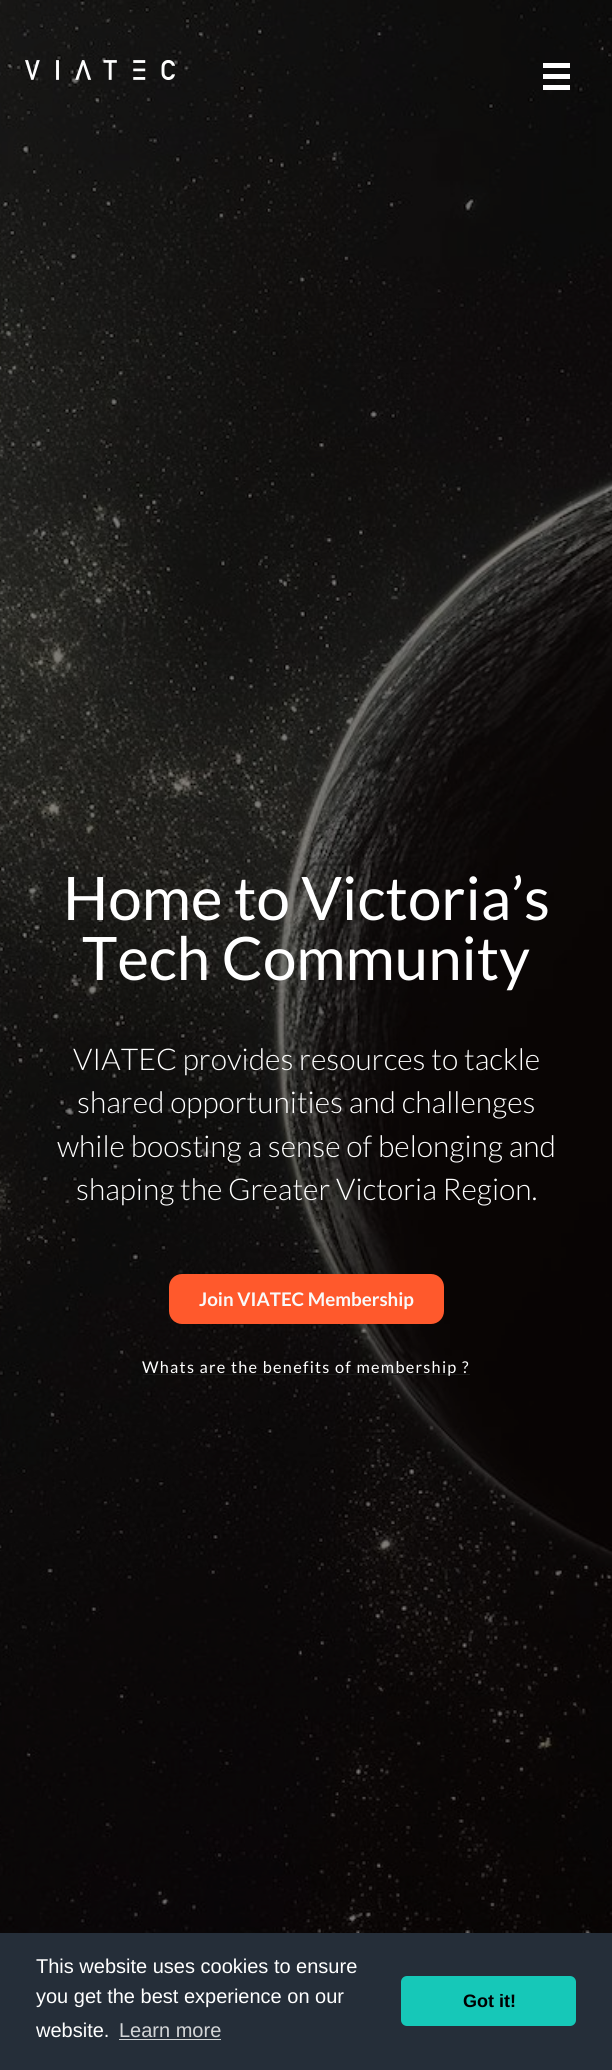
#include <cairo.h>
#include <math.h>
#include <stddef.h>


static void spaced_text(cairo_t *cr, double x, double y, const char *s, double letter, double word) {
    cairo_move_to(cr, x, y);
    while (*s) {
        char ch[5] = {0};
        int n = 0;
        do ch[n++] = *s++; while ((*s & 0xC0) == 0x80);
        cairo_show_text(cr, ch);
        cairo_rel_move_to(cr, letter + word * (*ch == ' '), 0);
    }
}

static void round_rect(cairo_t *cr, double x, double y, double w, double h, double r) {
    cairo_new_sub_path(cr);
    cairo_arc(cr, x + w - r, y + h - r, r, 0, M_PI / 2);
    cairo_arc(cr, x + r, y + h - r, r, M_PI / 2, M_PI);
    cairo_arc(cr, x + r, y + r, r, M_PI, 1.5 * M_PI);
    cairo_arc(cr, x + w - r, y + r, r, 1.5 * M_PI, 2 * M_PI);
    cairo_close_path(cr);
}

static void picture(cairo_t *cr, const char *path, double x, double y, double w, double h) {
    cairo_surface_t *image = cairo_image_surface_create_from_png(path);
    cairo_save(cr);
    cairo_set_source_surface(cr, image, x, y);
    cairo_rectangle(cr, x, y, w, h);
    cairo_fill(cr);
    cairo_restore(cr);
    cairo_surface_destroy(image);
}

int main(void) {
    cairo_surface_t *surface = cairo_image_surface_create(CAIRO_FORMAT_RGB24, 612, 2070);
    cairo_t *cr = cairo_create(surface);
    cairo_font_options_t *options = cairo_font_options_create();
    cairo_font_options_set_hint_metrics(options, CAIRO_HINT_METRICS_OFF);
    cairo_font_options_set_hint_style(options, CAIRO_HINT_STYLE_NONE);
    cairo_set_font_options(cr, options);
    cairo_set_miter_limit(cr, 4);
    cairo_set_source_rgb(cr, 1, 1, 1);
    cairo_paint(cr);
    picture(cr, "img2.png", 0, 0, 612, 1933);
    picture(cr, "img1.png", 25, 60, 150, 20);
    cairo_set_source_rgb(cr, 1, 1, 1);
    cairo_rectangle(cr, 543, 63, 27, 5);
    cairo_fill(cr);
    cairo_rectangle(cr, 543, 74, 27, 5);
    cairo_fill(cr);
    cairo_rectangle(cr, 543, 85, 27, 5);
    cairo_fill(cr);
    cairo_select_font_face(cr, "Lato", CAIRO_FONT_SLANT_NORMAL, CAIRO_FONT_WEIGHT_NORMAL);
    cairo_set_font_size(cr, 60);
    cairo_move_to(cr, 63, 920);
    cairo_show_text(cr, "Home to Victoria’s");
    cairo_move_to(cr, 82, 980);
    cairo_show_text(cr, "Tech Community");
    cairo_select_font_face(cr, "Lato Light", CAIRO_FONT_SLANT_NORMAL, CAIRO_FONT_WEIGHT_NORMAL);
    cairo_set_font_size(cr, 30);
    cairo_move_to(cr, 73, 1070);
    cairo_show_text(cr, "VIATEC provides resources to tackle");
    cairo_move_to(cr, 77, 1113);
    cairo_show_text(cr, "shared opportunities and challenges");
    cairo_move_to(cr, 57, 1157);
    cairo_show_text(cr, "while boosting a sense of belonging and");
    cairo_move_to(cr, 76, 1200);
    cairo_show_text(cr, "shaping the Greater Victoria Region.");
    cairo_set_source_rgb(cr, 1, 0.349, 0.173);
    round_rect(cr, 169, 1274, 275, 50, 13);
    cairo_fill(cr);
    cairo_select_font_face(cr, "Lato", CAIRO_FONT_SLANT_NORMAL, CAIRO_FONT_WEIGHT_BOLD);
    cairo_set_font_size(cr, 18.75);
    cairo_set_source_rgb(cr, 0.976, 0.976, 0.976);
    cairo_move_to(cr, 199, 1306);
    cairo_show_text(cr, "Join VIATEC Membership");
    cairo_set_source_rgb(cr, 0.102, 0.102, 0.102);
    cairo_rectangle(cr, 143, 1374, 327, 1);
    cairo_fill(cr);
    cairo_select_font_face(cr, "Lato", CAIRO_FONT_SLANT_NORMAL, CAIRO_FONT_WEIGHT_NORMAL);
    cairo_set_font_size(cr, 16.25);
    cairo_set_source_rgb(cr, 1, 1, 1);
    spaced_text(cr, 142, 1373, "Whats are the benefits of membership ?", 1.25, 0);
    cairo_set_source_rgb(cr, 0.145, 0.18, 0.224);
    cairo_rectangle(cr, 0, 1933, 612, 137);
    cairo_fill(cr);
    cairo_select_font_face(cr, "Liberation Sans", CAIRO_FONT_SLANT_NORMAL, CAIRO_FONT_WEIGHT_NORMAL);
    cairo_set_font_size(cr, 20);
    cairo_set_source_rgb(cr, 1, 1, 1);
    cairo_move_to(cr, 36, 1973);
    cairo_show_text(cr, "This website uses cookies to ensure");
    cairo_move_to(cr, 36, 2003);
    cairo_show_text(cr, "you get the best experience on our");
    cairo_move_to(cr, 36, 2037);
    cairo_show_text(cr, "website.");
    cairo_set_source_rgb(cr, 0.827, 0.835, 0.843);
    cairo_move_to(cr, 119, 2037);
    cairo_show_text(cr, "Learn more");
    cairo_rectangle(cr, 119, 2039, 102, 1);
    cairo_fill(cr);
    cairo_set_source_rgb(cr, 0.086, 0.784, 0.722);
    round_rect(cr, 401, 1976, 175, 50, 6);
    cairo_fill(cr);
    cairo_select_font_face(cr, "Liberation Sans", CAIRO_FONT_SLANT_NORMAL, CAIRO_FONT_WEIGHT_BOLD);
    cairo_set_font_size(cr, 18);
    cairo_set_source_rgb(cr, 0, 0, 0);
    cairo_move_to(cr, 463, 2007);
    cairo_show_text(cr, "Got it!");
    cairo_surface_write_to_png(surface, "page.png");
    cairo_font_options_destroy(options);
    cairo_destroy(cr);
    cairo_surface_destroy(surface);
    return 0;
}
